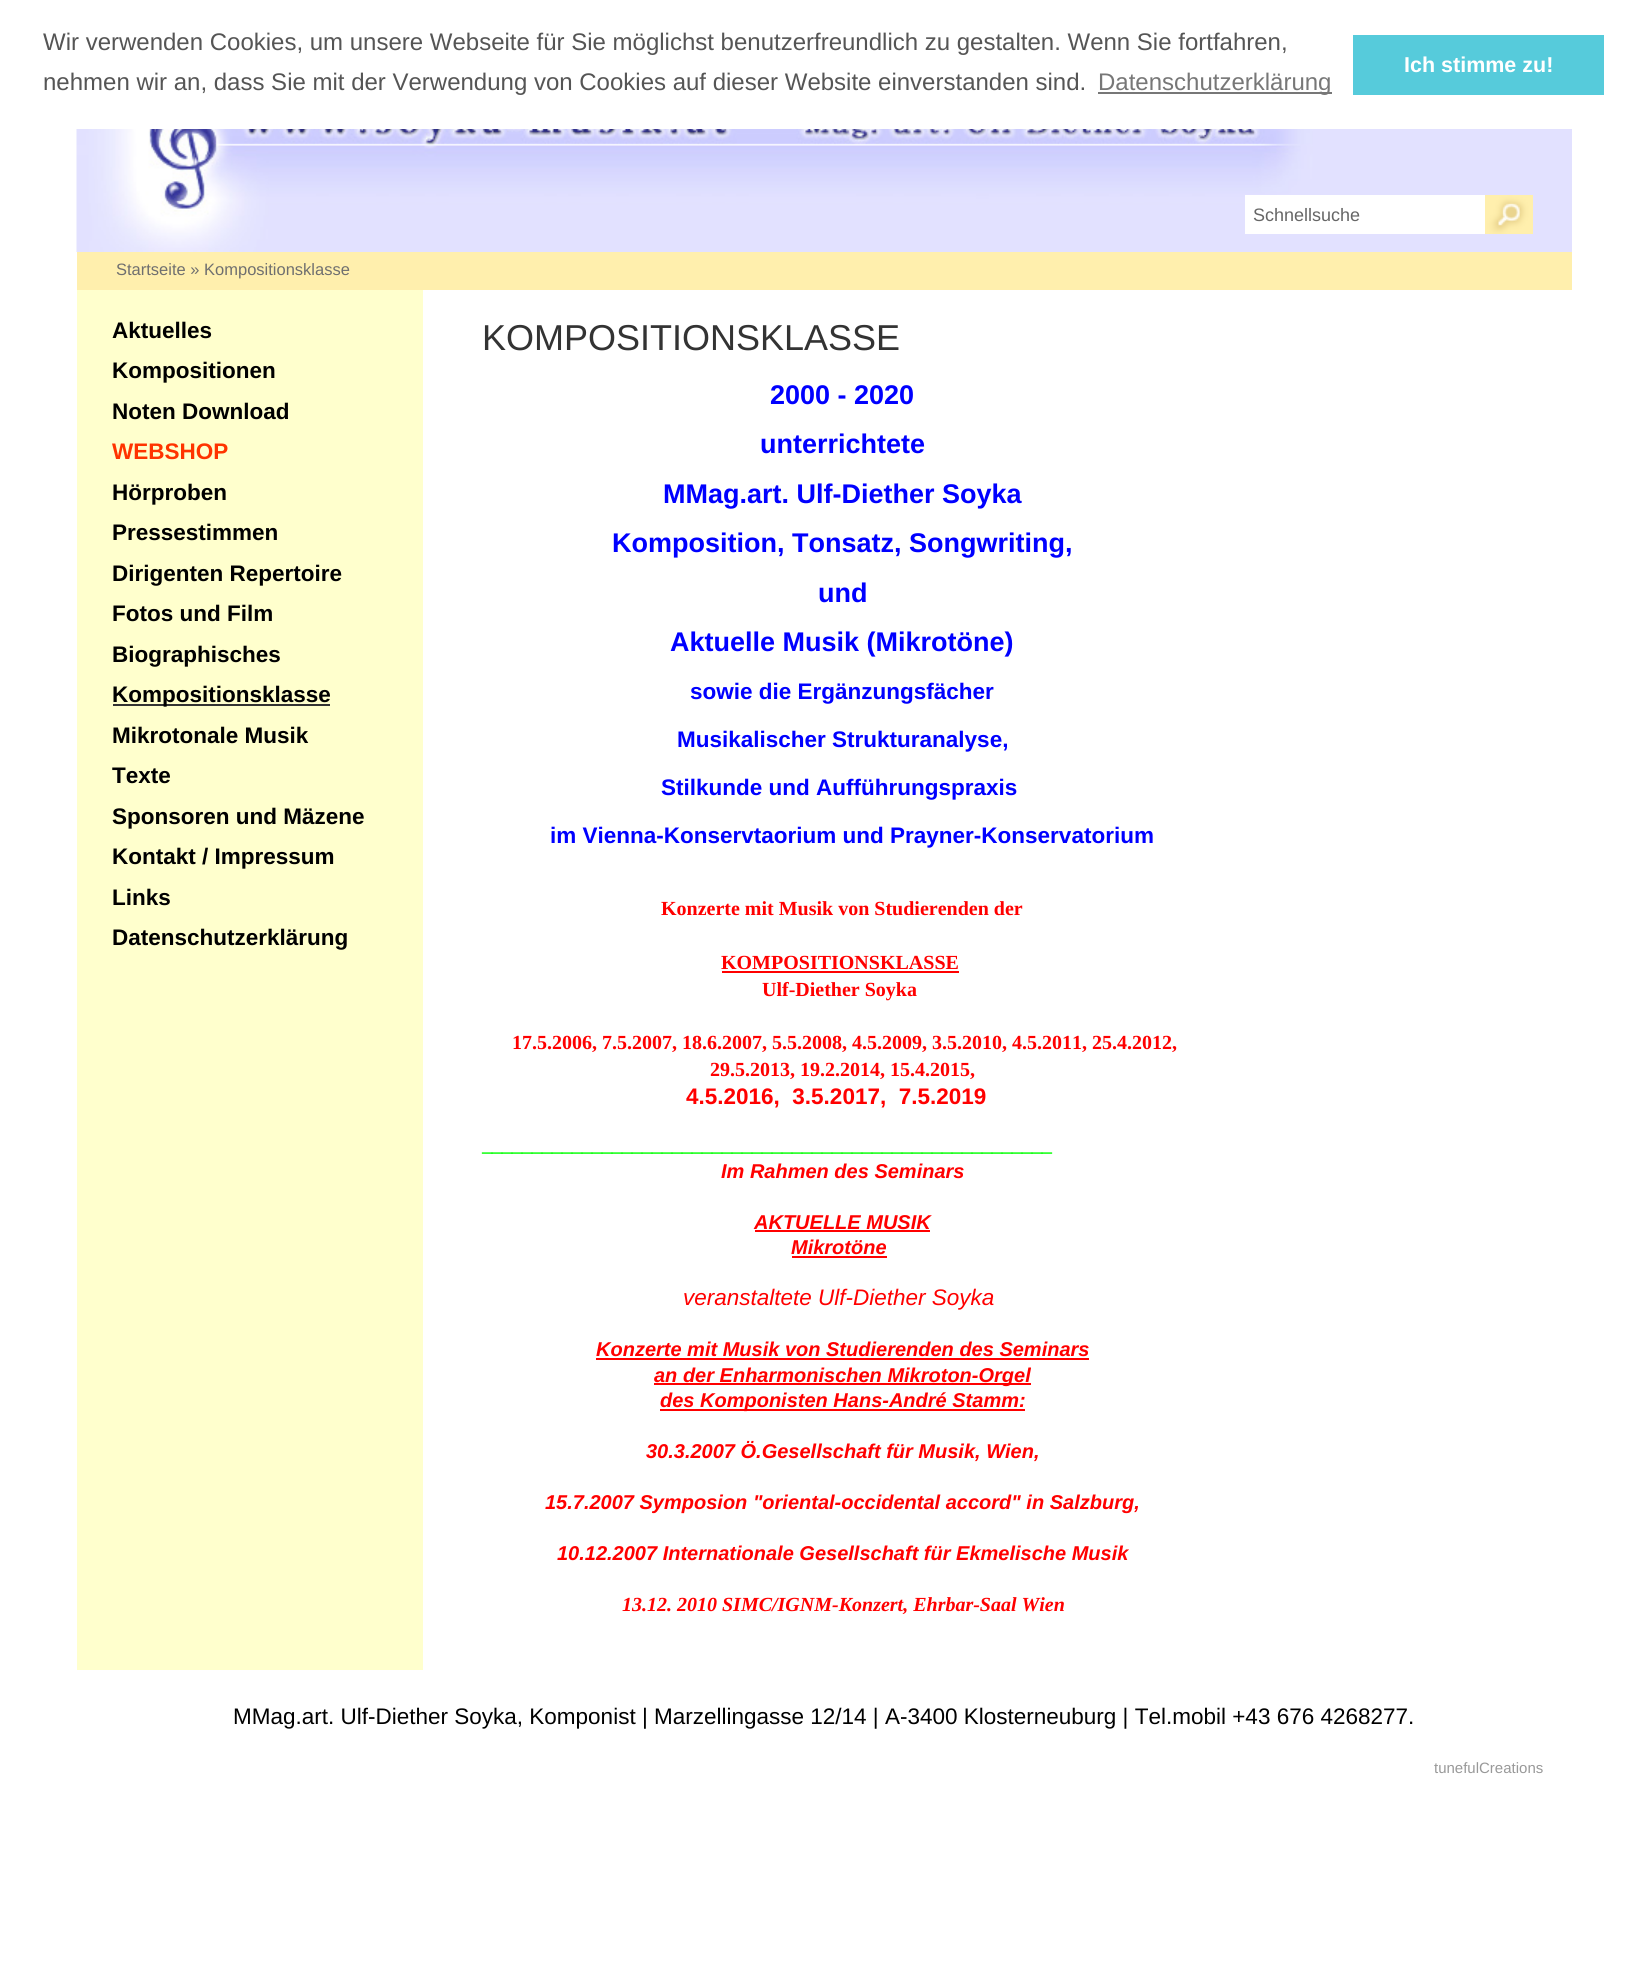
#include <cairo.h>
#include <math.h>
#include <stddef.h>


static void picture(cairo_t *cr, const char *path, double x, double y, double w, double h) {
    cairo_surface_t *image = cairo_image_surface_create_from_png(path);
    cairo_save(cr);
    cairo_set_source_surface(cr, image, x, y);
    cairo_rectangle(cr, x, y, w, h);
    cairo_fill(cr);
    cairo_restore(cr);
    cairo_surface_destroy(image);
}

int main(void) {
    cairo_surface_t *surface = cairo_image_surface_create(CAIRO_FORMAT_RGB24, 1647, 1966);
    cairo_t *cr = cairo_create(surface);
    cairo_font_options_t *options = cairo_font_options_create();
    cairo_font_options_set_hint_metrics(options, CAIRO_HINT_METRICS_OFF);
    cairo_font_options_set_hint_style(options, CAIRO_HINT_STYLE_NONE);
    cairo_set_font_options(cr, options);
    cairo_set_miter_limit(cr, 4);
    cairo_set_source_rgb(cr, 1, 1, 1);
    cairo_paint(cr);
    cairo_select_font_face(cr, "Liberation Sans", CAIRO_FONT_SLANT_NORMAL, CAIRO_FONT_WEIGHT_NORMAL);
    cairo_set_font_size(cr, 24);
    cairo_set_source_rgb(cr, 0.333, 0.333, 0.333);
    cairo_move_to(cr, 43, 50);
    cairo_show_text(cr, "Wir verwenden Cookies, um unsere Webseite für Sie möglichst benutzerfreundlich zu gestalten. Wenn Sie fortfahren,");
    cairo_move_to(cr, 43, 90);
    cairo_show_text(cr, "nehmen wir an, dass Sie mit der Verwendung von Cookies auf dieser Website einverstanden sind.");
    cairo_set_source_rgb(cr, 0.467, 0.467, 0.467);
    cairo_rectangle(cr, 1098, 92, 234, 2);
    cairo_fill(cr);
    cairo_move_to(cr, 1098, 90);
    cairo_show_text(cr, "Datenschutzerklärung");
    cairo_set_source_rgb(cr, 0.337, 0.796, 0.859);
    cairo_rectangle(cr, 1353, 35, 251, 60);
    cairo_fill(cr);
    cairo_select_font_face(cr, "Liberation Sans", CAIRO_FONT_SLANT_NORMAL, CAIRO_FONT_WEIGHT_BOLD);
    cairo_set_font_size(cr, 21.5);
    cairo_set_source_rgb(cr, 1, 1, 1);
    cairo_move_to(cr, 1404, 72);
    cairo_show_text(cr, "Ich stimme zu!");
    picture(cr, "img1.png", 76, 129, 1496, 123);
    cairo_rectangle(cr, 1245, 195, 240, 39);
    cairo_fill(cr);
    cairo_select_font_face(cr, "Liberation Sans", CAIRO_FONT_SLANT_NORMAL, CAIRO_FONT_WEIGHT_NORMAL);
    cairo_set_font_size(cr, 18);
    cairo_set_source_rgb(cr, 0.4, 0.4, 0.4);
    cairo_move_to(cr, 1253, 221);
    cairo_show_text(cr, "Schnellsuche");
    picture(cr, "img2.png", 1485, 195, 48, 39);
    cairo_set_source_rgb(cr, 1, 0.937, 0.678);
    cairo_rectangle(cr, 77, 252, 1495, 38);
    cairo_fill(cr);
    cairo_set_font_size(cr, 16.5);
    cairo_set_source_rgb(cr, 0.435, 0.435, 0.435);
    cairo_move_to(cr, 116, 275);
    cairo_show_text(cr, "Startseite » Kompositionsklasse");
    cairo_set_source_rgb(cr, 1, 1, 0.804);
    cairo_rectangle(cr, 77, 290, 346, 1380);
    cairo_fill(cr);
    cairo_select_font_face(cr, "Liberation Sans", CAIRO_FONT_SLANT_NORMAL, CAIRO_FONT_WEIGHT_BOLD);
    cairo_set_font_size(cr, 22.5);
    cairo_set_source_rgb(cr, 0, 0, 0);
    cairo_move_to(cr, 112, 338);
    cairo_show_text(cr, "Aktuelles");
    cairo_move_to(cr, 112, 378);
    cairo_show_text(cr, "Kompositionen");
    cairo_move_to(cr, 112, 419);
    cairo_show_text(cr, "Noten Download");
    cairo_set_source_rgb(cr, 1, 0.2, 0);
    cairo_move_to(cr, 112, 459);
    cairo_show_text(cr, "WEBSHOP");
    cairo_set_source_rgb(cr, 0, 0, 0);
    cairo_move_to(cr, 112, 500);
    cairo_show_text(cr, "Hörproben");
    cairo_move_to(cr, 112, 540);
    cairo_show_text(cr, "Pressestimmen");
    cairo_move_to(cr, 112, 581);
    cairo_show_text(cr, "Dirigenten Repertoire");
    cairo_move_to(cr, 112, 621);
    cairo_show_text(cr, "Fotos und Film");
    cairo_move_to(cr, 112, 662);
    cairo_show_text(cr, "Biographisches");
    cairo_set_source_rgb(cr, 0.2, 0.2, 0.2);
    cairo_rectangle(cr, 113, 704, 217, 2);
    cairo_fill(cr);
    cairo_set_source_rgb(cr, 0, 0, 0);
    cairo_move_to(cr, 112, 702);
    cairo_show_text(cr, "Kompositionsklasse");
    cairo_move_to(cr, 112, 743);
    cairo_show_text(cr, "Mikrotonale Musik");
    cairo_move_to(cr, 112, 783);
    cairo_show_text(cr, "Texte");
    cairo_move_to(cr, 112, 824);
    cairo_show_text(cr, "Sponsoren und Mäzene");
    cairo_move_to(cr, 112, 864);
    cairo_show_text(cr, "Kontakt / Impressum");
    cairo_move_to(cr, 112, 905);
    cairo_show_text(cr, "Links");
    cairo_move_to(cr, 112, 945);
    cairo_show_text(cr, "Datenschutzerklärung");
    cairo_select_font_face(cr, "Liberation Sans", CAIRO_FONT_SLANT_NORMAL, CAIRO_FONT_WEIGHT_NORMAL);
    cairo_set_font_size(cr, 36);
    cairo_set_source_rgb(cr, 0.2, 0.2, 0.2);
    cairo_move_to(cr, 482, 350);
    cairo_show_text(cr, "KOMPOSITIONSKLASSE");
    cairo_select_font_face(cr, "Liberation Sans", CAIRO_FONT_SLANT_NORMAL, CAIRO_FONT_WEIGHT_BOLD);
    cairo_set_font_size(cr, 27);
    cairo_set_source_rgb(cr, 0, 0, 1);
    cairo_move_to(cr, 770, 404);
    cairo_show_text(cr, "2000 - 2020");
    cairo_move_to(cr, 760, 453);
    cairo_show_text(cr, "unterrichtete");
    cairo_move_to(cr, 663, 503);
    cairo_show_text(cr, "MMag.art. Ulf-Diether Soyka");
    cairo_move_to(cr, 612, 552);
    cairo_show_text(cr, "Komposition, Tonsatz, Songwriting,");
    cairo_move_to(cr, 818, 602);
    cairo_show_text(cr, "und");
    cairo_move_to(cr, 670, 651);
    cairo_show_text(cr, "Aktuelle Musik (Mikrotöne)");
    cairo_set_font_size(cr, 22.5);
    cairo_move_to(cr, 690, 699);
    cairo_show_text(cr, "sowie die Ergänzungsfächer");
    cairo_move_to(cr, 677, 747);
    cairo_show_text(cr, "Musikalischer Strukturanalyse,");
    cairo_move_to(cr, 661, 795);
    cairo_show_text(cr, "Stilkunde und Aufführungspraxis");
    cairo_move_to(cr, 550, 843);
    cairo_show_text(cr, "im Vienna-Konservtaorium und Prayner-Konservatorium");
    cairo_select_font_face(cr, "Liberation Serif", CAIRO_FONT_SLANT_NORMAL, CAIRO_FONT_WEIGHT_BOLD);
    cairo_set_font_size(cr, 20);
    cairo_set_source_rgb(cr, 1, 0, 0);
    cairo_move_to(cr, 661, 915);
    cairo_show_text(cr, "Konzerte mit Musik von Studierenden der");
    cairo_move_to(cr, 721, 969);
    cairo_show_text(cr, "KOMPOSITIONSKLASSE");
    cairo_rectangle(cr, 722, 971, 237, 2);
    cairo_fill(cr);
    cairo_move_to(cr, 762, 996);
    cairo_show_text(cr, "Ulf-Diether Soyka");
    cairo_move_to(cr, 512, 1049);
    cairo_show_text(cr, "17.5.2006, 7.5.2007, 18.6.2007, 5.5.2008, 4.5.2009, 3.5.2010, 4.5.2011, 25.4.2012,");
    cairo_move_to(cr, 710, 1076);
    cairo_show_text(cr, "29.5.2013, 19.2.2014, 15.4.2015,");
    cairo_select_font_face(cr, "Liberation Sans", CAIRO_FONT_SLANT_NORMAL, CAIRO_FONT_WEIGHT_BOLD);
    cairo_set_font_size(cr, 22.5);
    cairo_move_to(cr, 686, 1104);
    cairo_show_text(cr, "4.5.2016,  3.5.2017,  7.5.2019");
    cairo_select_font_face(cr, "Liberation Serif", CAIRO_FONT_SLANT_NORMAL, CAIRO_FONT_WEIGHT_BOLD);
    cairo_set_font_size(cr, 20);
    cairo_set_source_rgb(cr, 0, 1, 0);
    cairo_move_to(cr, 482, 1151);
    cairo_show_text(cr, "_________________________________________________________");
    cairo_select_font_face(cr, "Liberation Sans", CAIRO_FONT_SLANT_ITALIC, CAIRO_FONT_WEIGHT_BOLD);
    cairo_set_source_rgb(cr, 1, 0, 0);
    cairo_move_to(cr, 721, 1178);
    cairo_show_text(cr, "Im Rahmen des Seminars");
    cairo_move_to(cr, 754, 1229);
    cairo_show_text(cr, "AKTUELLE MUSIK");
    cairo_rectangle(cr, 755, 1230, 175, 2);
    cairo_fill(cr);
    cairo_move_to(cr, 791, 1254);
    cairo_show_text(cr, "Mikrotöne");
    cairo_rectangle(cr, 792, 1256, 95, 2);
    cairo_fill(cr);
    cairo_select_font_face(cr, "Liberation Sans", CAIRO_FONT_SLANT_ITALIC, CAIRO_FONT_WEIGHT_NORMAL);
    cairo_set_font_size(cr, 22.5);
    cairo_move_to(cr, 683, 1305);
    cairo_show_text(cr, "veranstaltete Ulf-Diether Soyka");
    cairo_select_font_face(cr, "Liberation Sans", CAIRO_FONT_SLANT_ITALIC, CAIRO_FONT_WEIGHT_BOLD);
    cairo_set_font_size(cr, 20);
    cairo_move_to(cr, 596, 1356);
    cairo_show_text(cr, "Konzerte mit Musik von Studierenden des Seminars");
    cairo_rectangle(cr, 596, 1358, 493, 2);
    cairo_fill(cr);
    cairo_rectangle(cr, 654, 1383, 377, 2);
    cairo_fill(cr);
    cairo_move_to(cr, 654, 1382);
    cairo_show_text(cr, "an der Enharmonischen Mikroton-Orgel");
    cairo_rectangle(cr, 660, 1409, 365, 2);
    cairo_fill(cr);
    cairo_move_to(cr, 660, 1407);
    cairo_show_text(cr, "des Komponisten Hans-André Stamm:");
    cairo_move_to(cr, 646, 1458);
    cairo_show_text(cr, "30.3.2007 Ö.Gesellschaft für Musik, Wien,");
    cairo_move_to(cr, 545, 1509);
    cairo_show_text(cr, "15.7.2007 Symposion \"oriental-occidental accord\" in Salzburg,");
    cairo_move_to(cr, 557, 1560);
    cairo_show_text(cr, "10.12.2007 Internationale Gesellschaft für Ekmelische Musik");
    cairo_select_font_face(cr, "Liberation Serif", CAIRO_FONT_SLANT_ITALIC, CAIRO_FONT_WEIGHT_BOLD);
    cairo_move_to(cr, 622, 1611);
    cairo_show_text(cr, "13.12. 2010 SIMC/IGNM-Konzert, Ehrbar-Saal Wien");
    cairo_select_font_face(cr, "Liberation Sans", CAIRO_FONT_SLANT_NORMAL, CAIRO_FONT_WEIGHT_NORMAL);
    cairo_set_font_size(cr, 22.5);
    cairo_set_source_rgb(cr, 0, 0, 0);
    cairo_move_to(cr, 233, 1724);
    cairo_show_text(cr, "MMag.art. Ulf-Diether Soyka, Komponist | Marzellingasse 12/14 | A-3400 Klosterneuburg | Tel.mobil +43 676 4268277.");
    cairo_set_font_size(cr, 15);
    cairo_set_source_rgb(cr, 0.6, 0.6, 0.6);
    cairo_move_to(cr, 1434, 1773);
    cairo_show_text(cr, "tunefulCreations");
    cairo_surface_write_to_png(surface, "page.png");
    cairo_font_options_destroy(options);
    cairo_destroy(cr);
    cairo_surface_destroy(surface);
    return 0;
}
